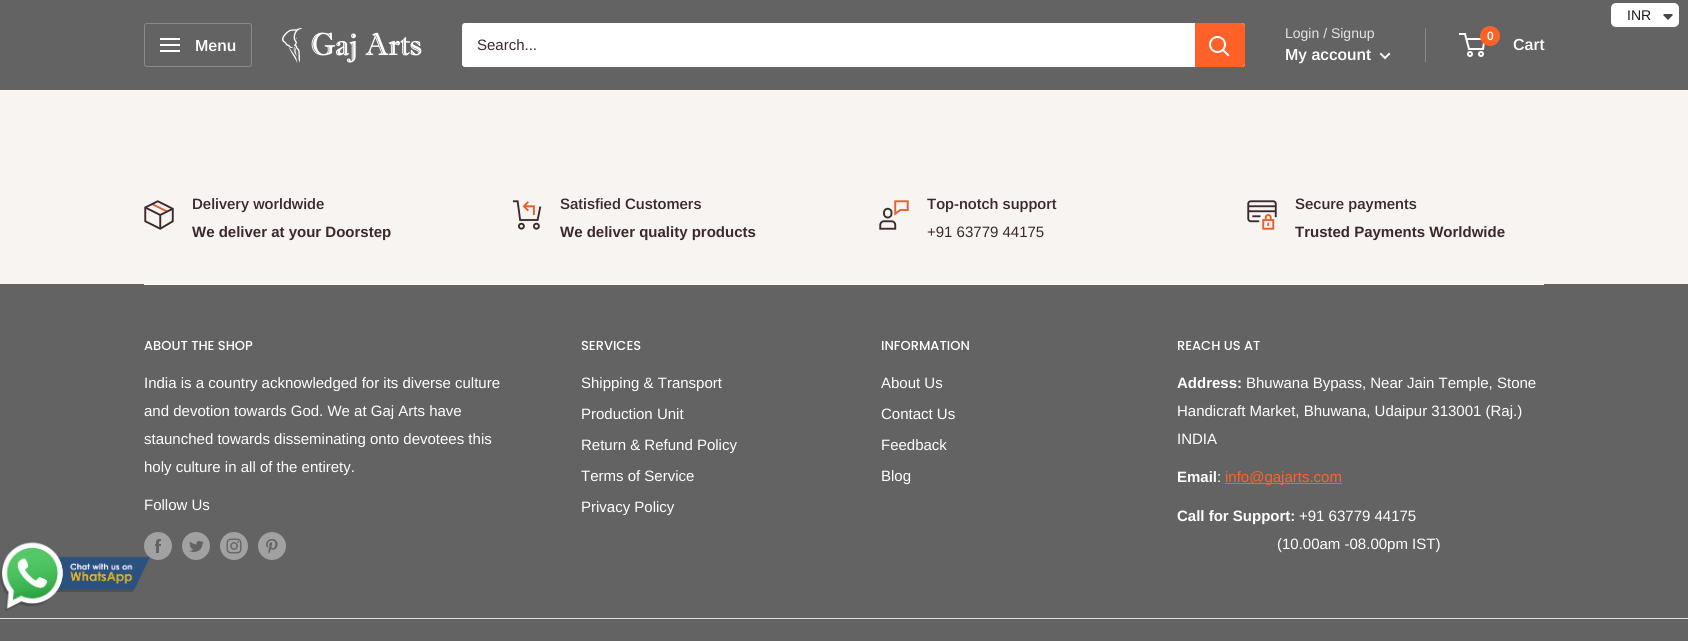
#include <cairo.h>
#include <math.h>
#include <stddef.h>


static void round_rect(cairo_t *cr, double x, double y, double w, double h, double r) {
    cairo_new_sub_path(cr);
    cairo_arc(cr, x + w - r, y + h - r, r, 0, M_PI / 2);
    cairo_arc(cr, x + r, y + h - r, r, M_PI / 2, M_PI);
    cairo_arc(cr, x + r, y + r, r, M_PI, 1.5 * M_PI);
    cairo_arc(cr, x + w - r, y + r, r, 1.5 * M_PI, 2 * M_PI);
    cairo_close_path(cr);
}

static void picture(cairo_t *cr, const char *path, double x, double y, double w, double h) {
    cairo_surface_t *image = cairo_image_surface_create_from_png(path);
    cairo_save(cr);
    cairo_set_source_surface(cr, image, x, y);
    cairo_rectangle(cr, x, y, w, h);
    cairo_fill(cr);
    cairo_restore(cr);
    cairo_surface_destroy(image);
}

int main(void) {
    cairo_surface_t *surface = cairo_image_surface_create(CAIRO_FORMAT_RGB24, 1688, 641);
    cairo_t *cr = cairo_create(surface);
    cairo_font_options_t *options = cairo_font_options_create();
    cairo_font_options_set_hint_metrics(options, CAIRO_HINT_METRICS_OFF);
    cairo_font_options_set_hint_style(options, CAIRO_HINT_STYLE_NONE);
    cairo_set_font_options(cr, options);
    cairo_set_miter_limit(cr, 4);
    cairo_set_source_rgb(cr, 0.969, 0.957, 0.949);
    cairo_paint(cr);
    cairo_set_source_rgb(cr, 0.388, 0.388, 0.388);
    cairo_rectangle(cr, 0, 0, 1688, 90);
    cairo_fill(cr);
    cairo_set_source_rgb(cr, 1, 1, 1);
    round_rect(cr, 1611, 3, 68, 24, 5);
    cairo_fill(cr);
    cairo_select_font_face(cr, "Arimo", CAIRO_FONT_SLANT_NORMAL, CAIRO_FONT_WEIGHT_NORMAL);
    cairo_set_font_size(cr, 14);
    cairo_set_source_rgb(cr, 0.118, 0.118, 0.118);
    cairo_move_to(cr, 1627, 20);
    cairo_show_text(cr, "INR");
    cairo_set_source_rgb(cr, 0.278, 0.286, 0.259);
    cairo_new_path(cr);
    cairo_move_to(cr, 1665, 14);
    cairo_curve_to(cr, 1664, 14, 1663.5, 14.5, 1663, 15);
    cairo_line_to(cr, 1668, 20);
    cairo_line_to(cr, 1673, 15);
    cairo_line_to(cr, 1672, 14);
    cairo_close_path(cr);
    cairo_fill(cr);
    round_rect(cr, 144.5, 23.5, 107, 43, 2.5);
    cairo_set_source_rgb(cr, 0.545, 0.537, 0.533);
    cairo_set_line_width(cr, 1);
    cairo_stroke(cr);
    picture(cr, "img1.png", 160, 38, 20, 14);
    cairo_select_font_face(cr, "Arimo SemiBold", CAIRO_FONT_SLANT_NORMAL, CAIRO_FONT_WEIGHT_NORMAL);
    cairo_set_font_size(cr, 16);
    cairo_set_source_rgb(cr, 1, 1, 1);
    cairo_move_to(cr, 195, 51);
    cairo_show_text(cr, "Menu");
    picture(cr, "img2.png", 282, 28, 140, 35);
    round_rect(cr, 462, 23, 783, 44, 3);
    cairo_fill(cr);
    cairo_select_font_face(cr, "Arimo", CAIRO_FONT_SLANT_NORMAL, CAIRO_FONT_WEIGHT_NORMAL);
    cairo_set_font_size(cr, 15);
    cairo_set_source_rgb(cr, 0.227, 0.165, 0.184);
    cairo_move_to(cr, 477, 50);
    cairo_show_text(cr, "Search...");
    cairo_set_source_rgb(cr, 1, 0.38, 0.157);
    cairo_new_path(cr);
    cairo_move_to(cr, 1195, 23);
    cairo_line_to(cr, 1242, 23);
    cairo_curve_to(cr, 1243.5, 23, 1245, 24.5, 1245, 26);
    cairo_line_to(cr, 1245, 64);
    cairo_curve_to(cr, 1245, 65.5, 1243.5, 67, 1242, 67);
    cairo_line_to(cr, 1195, 67);
    cairo_close_path(cr);
    cairo_fill(cr);
    cairo_new_path(cr);
    cairo_move_to(cr, 1228, 55);
    cairo_line_to(cr, 1223, 50);
    cairo_set_source_rgb(cr, 1, 1, 1);
    cairo_set_line_width(cr, 2);
    cairo_set_line_cap(cr, CAIRO_LINE_CAP_SQUARE);
    cairo_stroke(cr);
    cairo_arc(cr, 1217.5, 44.5, 7.5, 0, 2 * M_PI);
    cairo_set_line_cap(cr, CAIRO_LINE_CAP_BUTT);
    cairo_stroke(cr);
    cairo_set_font_size(cr, 14);
    cairo_set_source_rgb(cr, 0.914, 0.886, 0.867);
    cairo_move_to(cr, 1285, 38);
    cairo_show_text(cr, "Login / Signup");
    cairo_set_source_rgb(cr, 0.545, 0.537, 0.533);
    cairo_rectangle(cr, 1425, 28, 1, 34);
    cairo_fill(cr);
    cairo_select_font_face(cr, "Arimo SemiBold", CAIRO_FONT_SLANT_NORMAL, CAIRO_FONT_WEIGHT_NORMAL);
    cairo_set_font_size(cr, 16);
    cairo_set_source_rgb(cr, 1, 1, 1);
    cairo_move_to(cr, 1285, 60);
    cairo_show_text(cr, "My account");
    cairo_new_path(cr);
    cairo_move_to(cr, 1389, 54);
    cairo_line_to(cr, 1385, 58);
    cairo_line_to(cr, 1381, 54);
    cairo_set_line_cap(cr, CAIRO_LINE_CAP_SQUARE);
    cairo_stroke(cr);
    cairo_arc(cr, 1470, 54, 2, 0, 2 * M_PI);
    cairo_set_line_cap(cr, CAIRO_LINE_CAP_BUTT);
    cairo_stroke(cr);
    cairo_arc(cr, 1481, 54, 2, 0, 2 * M_PI);
    cairo_stroke(cr);
    cairo_new_path(cr);
    cairo_move_to(cr, 1466.5, 39);
    cairo_line_to(cr, 1484.5, 39);
    cairo_line_to(cr, 1483, 49);
    cairo_line_to(cr, 1469, 49);
    cairo_line_to(cr, 1465, 34);
    cairo_line_to(cr, 1459, 34);
    cairo_stroke(cr);
    cairo_set_source_rgb(cr, 1, 0.38, 0.157);
    cairo_arc(cr, 1490, 36, 10, 0, 2 * M_PI);
    cairo_fill(cr);
    cairo_set_font_size(cr, 12);
    cairo_set_source_rgb(cr, 1, 1, 1);
    cairo_move_to(cr, 1487, 40);
    cairo_show_text(cr, "0");
    cairo_set_font_size(cr, 16);
    cairo_move_to(cr, 1513, 50);
    cairo_show_text(cr, "Cart");
    picture(cr, "img3.png", 144, 200, 30, 30);
    cairo_set_font_size(cr, 15);
    cairo_set_source_rgb(cr, 0.227, 0.165, 0.184);
    cairo_move_to(cr, 192, 209);
    cairo_show_text(cr, "Delivery worldwide");
    cairo_select_font_face(cr, "Arimo", CAIRO_FONT_SLANT_NORMAL, CAIRO_FONT_WEIGHT_BOLD);
    cairo_move_to(cr, 192, 237);
    cairo_show_text(cr, "We deliver at your Doorstep");
    picture(cr, "img4.png", 512, 200, 30, 30);
    cairo_select_font_face(cr, "Arimo SemiBold", CAIRO_FONT_SLANT_NORMAL, CAIRO_FONT_WEIGHT_NORMAL);
    cairo_move_to(cr, 560, 209);
    cairo_show_text(cr, "Satisfied Customers");
    cairo_select_font_face(cr, "Arimo", CAIRO_FONT_SLANT_NORMAL, CAIRO_FONT_WEIGHT_BOLD);
    cairo_move_to(cr, 560, 237);
    cairo_show_text(cr, "We deliver quality products");
    picture(cr, "img5.png", 879, 200, 30, 30);
    cairo_select_font_face(cr, "Arimo SemiBold", CAIRO_FONT_SLANT_NORMAL, CAIRO_FONT_WEIGHT_NORMAL);
    cairo_move_to(cr, 927, 209);
    cairo_show_text(cr, "Top-notch support");
    cairo_select_font_face(cr, "Arimo", CAIRO_FONT_SLANT_NORMAL, CAIRO_FONT_WEIGHT_NORMAL);
    cairo_move_to(cr, 927, 237);
    cairo_show_text(cr, "+91 63779 44175");
    picture(cr, "img6.png", 1247, 200, 30, 30);
    cairo_select_font_face(cr, "Arimo SemiBold", CAIRO_FONT_SLANT_NORMAL, CAIRO_FONT_WEIGHT_NORMAL);
    cairo_move_to(cr, 1295, 209);
    cairo_show_text(cr, "Secure payments");
    cairo_select_font_face(cr, "Arimo", CAIRO_FONT_SLANT_NORMAL, CAIRO_FONT_WEIGHT_BOLD);
    cairo_move_to(cr, 1295, 237);
    cairo_show_text(cr, "Trusted Payments Worldwide");
    cairo_set_source_rgb(cr, 0.388, 0.388, 0.388);
    cairo_rectangle(cr, 0, 284, 1688, 357);
    cairo_fill(cr);
    cairo_set_source_rgb(cr, 1, 1, 1);
    cairo_rectangle(cr, 144, 284, 1400, 1);
    cairo_fill(cr);
    cairo_select_font_face(cr, "Poppins Medium", CAIRO_FONT_SLANT_NORMAL, CAIRO_FONT_WEIGHT_NORMAL);
    cairo_set_font_size(cr, 13);
    cairo_move_to(cr, 144, 350);
    cairo_show_text(cr, "ABOUT THE SHOP");
    cairo_select_font_face(cr, "Arimo", CAIRO_FONT_SLANT_NORMAL, CAIRO_FONT_WEIGHT_NORMAL);
    cairo_set_font_size(cr, 15);
    cairo_move_to(cr, 144, 388);
    cairo_show_text(cr, "India is a country acknowledged for its diverse culture");
    cairo_move_to(cr, 144, 416);
    cairo_show_text(cr, "and devotion towards God. We at Gaj Arts have");
    cairo_move_to(cr, 144, 444);
    cairo_show_text(cr, "staunched towards disseminating onto devotees this");
    cairo_move_to(cr, 144, 472);
    cairo_show_text(cr, "holy culture in all of the entirety.");
    cairo_move_to(cr, 144, 510);
    cairo_show_text(cr, "Follow Us");
    picture(cr, "img7.png", 144, 532, 28, 28);
    picture(cr, "img8.png", 182, 532, 28, 28);
    picture(cr, "img9.png", 220, 532, 28, 28);
    picture(cr, "img10.png", 258, 532, 28, 28);
    cairo_select_font_face(cr, "Poppins Medium", CAIRO_FONT_SLANT_NORMAL, CAIRO_FONT_WEIGHT_NORMAL);
    cairo_set_font_size(cr, 13);
    cairo_move_to(cr, 581, 350);
    cairo_show_text(cr, "SERVICES");
    cairo_select_font_face(cr, "Arimo", CAIRO_FONT_SLANT_NORMAL, CAIRO_FONT_WEIGHT_NORMAL);
    cairo_set_font_size(cr, 15);
    cairo_move_to(cr, 581, 388);
    cairo_show_text(cr, "Shipping & Transport");
    cairo_move_to(cr, 581, 419);
    cairo_show_text(cr, "Production Unit");
    cairo_move_to(cr, 581, 450);
    cairo_show_text(cr, "Return & Refund Policy");
    cairo_move_to(cr, 581, 481);
    cairo_show_text(cr, "Terms of Service");
    cairo_move_to(cr, 581, 512);
    cairo_show_text(cr, "Privacy Policy");
    cairo_select_font_face(cr, "Poppins Medium", CAIRO_FONT_SLANT_NORMAL, CAIRO_FONT_WEIGHT_NORMAL);
    cairo_set_font_size(cr, 13);
    cairo_move_to(cr, 881, 350);
    cairo_show_text(cr, "INFORMATION");
    cairo_select_font_face(cr, "Arimo", CAIRO_FONT_SLANT_NORMAL, CAIRO_FONT_WEIGHT_NORMAL);
    cairo_set_font_size(cr, 15);
    cairo_move_to(cr, 881, 388);
    cairo_show_text(cr, "About Us");
    cairo_move_to(cr, 881, 419);
    cairo_show_text(cr, "Contact Us");
    cairo_move_to(cr, 881, 450);
    cairo_show_text(cr, "Feedback");
    cairo_move_to(cr, 881, 481);
    cairo_show_text(cr, "Blog");
    cairo_select_font_face(cr, "Poppins Medium", CAIRO_FONT_SLANT_NORMAL, CAIRO_FONT_WEIGHT_NORMAL);
    cairo_set_font_size(cr, 13);
    cairo_move_to(cr, 1177, 350);
    cairo_show_text(cr, "REACH US AT");
    cairo_select_font_face(cr, "Arimo", CAIRO_FONT_SLANT_NORMAL, CAIRO_FONT_WEIGHT_BOLD);
    cairo_set_font_size(cr, 15);
    cairo_move_to(cr, 1177, 388);
    cairo_show_text(cr, "Address:");
    cairo_select_font_face(cr, "Arimo", CAIRO_FONT_SLANT_NORMAL, CAIRO_FONT_WEIGHT_NORMAL);
    cairo_move_to(cr, 1246, 388);
    cairo_show_text(cr, "Bhuwana Bypass, Near Jain Temple, Stone");
    cairo_move_to(cr, 1177, 416);
    cairo_show_text(cr, "Handicraft Market, Bhuwana, Udaipur 313001 (Raj.)");
    cairo_move_to(cr, 1177, 444);
    cairo_show_text(cr, "INDIA");
    cairo_select_font_face(cr, "Arimo", CAIRO_FONT_SLANT_NORMAL, CAIRO_FONT_WEIGHT_BOLD);
    cairo_move_to(cr, 1177, 482);
    cairo_show_text(cr, "Email");
    cairo_select_font_face(cr, "Arimo", CAIRO_FONT_SLANT_NORMAL, CAIRO_FONT_WEIGHT_NORMAL);
    cairo_move_to(cr, 1217, 482);
    cairo_show_text(cr, ":");
    cairo_set_source_rgb(cr, 1, 0.38, 0.157);
    cairo_rectangle(cr, 1225, 483, 117, 1);
    cairo_fill(cr);
    cairo_move_to(cr, 1225, 482);
    cairo_show_text(cr, "info@gajarts.com");
    cairo_select_font_face(cr, "Arimo", CAIRO_FONT_SLANT_NORMAL, CAIRO_FONT_WEIGHT_BOLD);
    cairo_set_source_rgb(cr, 1, 1, 1);
    cairo_move_to(cr, 1177, 521);
    cairo_show_text(cr, "Call for Support:");
    cairo_select_font_face(cr, "Arimo", CAIRO_FONT_SLANT_NORMAL, CAIRO_FONT_WEIGHT_NORMAL);
    cairo_move_to(cr, 1299, 521);
    cairo_show_text(cr, "+91 63779 44175");
    cairo_move_to(cr, 1277, 549);
    cairo_show_text(cr, "(10.00am -08.00pm IST)");
    cairo_set_source_rgb(cr, 0.867, 0.867, 0.867);
    cairo_rectangle(cr, 0, 618, 1688, 1);
    cairo_fill(cr);
    picture(cr, "img11.png", 0, 542, 150, 69);
    cairo_surface_write_to_png(surface, "page.png");
    cairo_font_options_destroy(options);
    cairo_destroy(cr);
    cairo_surface_destroy(surface);
    return 0;
}
